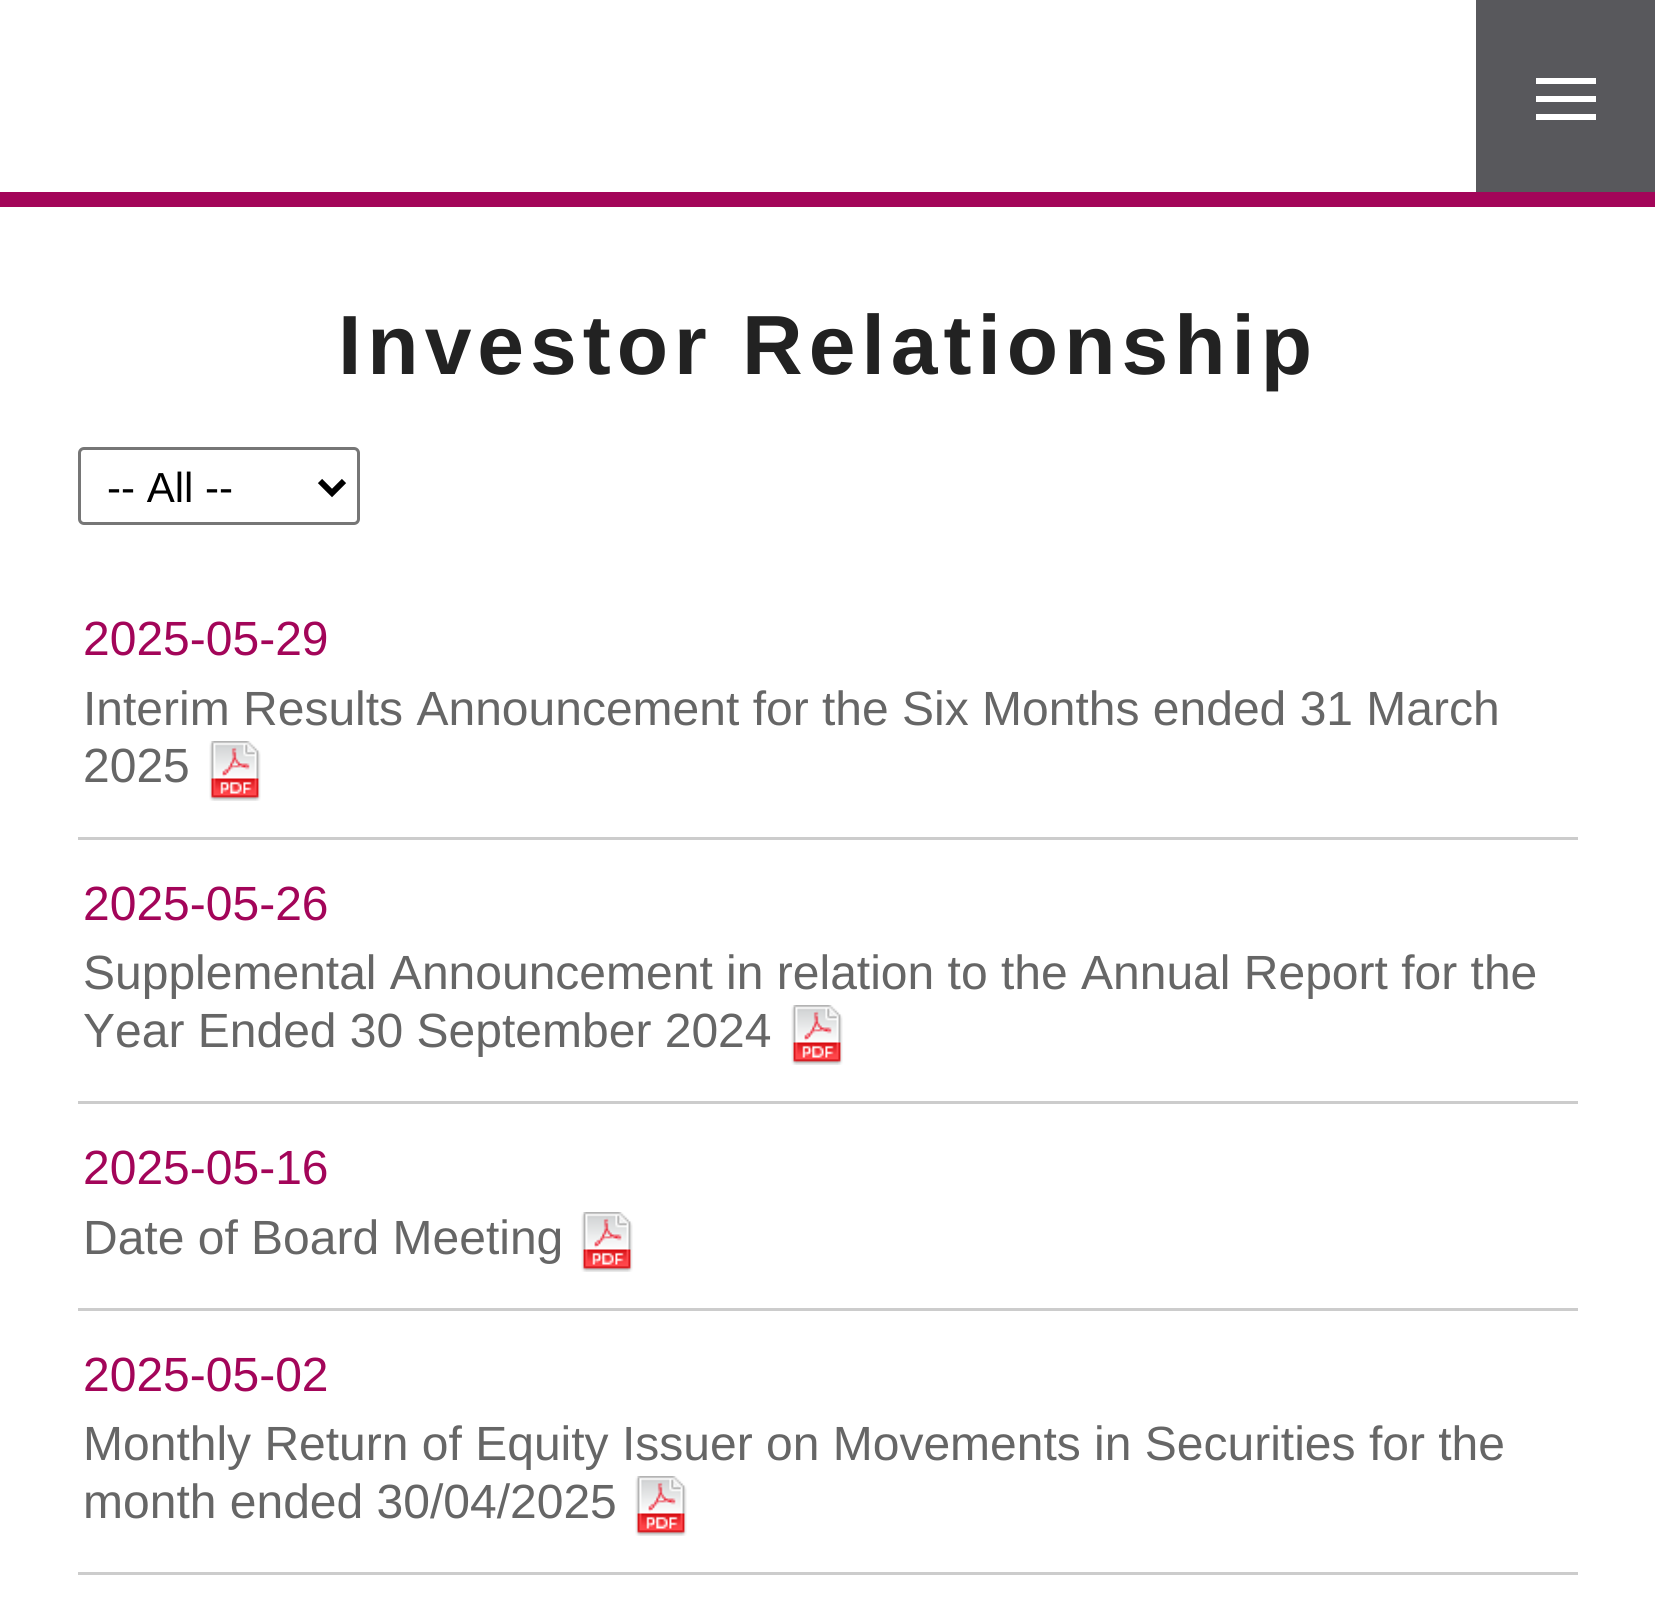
#include <cairo.h>
#include <math.h>
#include <stddef.h>


static void spaced_text(cairo_t *cr, double x, double y, const char *s, double letter, double word) {
    cairo_move_to(cr, x, y);
    while (*s) {
        char ch[5] = {0};
        int n = 0;
        do ch[n++] = *s++; while ((*s & 0xC0) == 0x80);
        cairo_show_text(cr, ch);
        cairo_rel_move_to(cr, letter + word * (*ch == ' '), 0);
    }
}

static void round_rect(cairo_t *cr, double x, double y, double w, double h, double r) {
    cairo_new_sub_path(cr);
    cairo_arc(cr, x + w - r, y + h - r, r, 0, M_PI / 2);
    cairo_arc(cr, x + r, y + h - r, r, M_PI / 2, M_PI);
    cairo_arc(cr, x + r, y + r, r, M_PI, 1.5 * M_PI);
    cairo_arc(cr, x + w - r, y + r, r, 1.5 * M_PI, 2 * M_PI);
    cairo_close_path(cr);
}

static void picture(cairo_t *cr, const char *path, double x, double y, double w, double h) {
    cairo_surface_t *image = cairo_image_surface_create_from_png(path);
    cairo_save(cr);
    cairo_set_source_surface(cr, image, x, y);
    cairo_rectangle(cr, x, y, w, h);
    cairo_fill(cr);
    cairo_restore(cr);
    cairo_surface_destroy(image);
}

int main(void) {
    cairo_surface_t *surface = cairo_image_surface_create(CAIRO_FORMAT_RGB24, 1655, 1600);
    cairo_t *cr = cairo_create(surface);
    cairo_font_options_t *options = cairo_font_options_create();
    cairo_font_options_set_hint_metrics(options, CAIRO_HINT_METRICS_OFF);
    cairo_font_options_set_hint_style(options, CAIRO_HINT_STYLE_NONE);
    cairo_set_font_options(cr, options);
    cairo_set_miter_limit(cr, 4);
    cairo_set_source_rgb(cr, 1, 1, 1);
    cairo_paint(cr);
    cairo_set_source_rgb(cr, 0.345, 0.345, 0.361);
    cairo_rectangle(cr, 1476, 0, 179, 192);
    cairo_fill(cr);
    cairo_set_source_rgb(cr, 1, 1, 1);
    cairo_rectangle(cr, 1536, 78, 60, 6);
    cairo_fill(cr);
    cairo_rectangle(cr, 1536, 96, 60, 6);
    cairo_fill(cr);
    cairo_rectangle(cr, 1536, 114, 60, 6);
    cairo_fill(cr);
    cairo_set_source_rgb(cr, 0.639, 0.02, 0.349);
    cairo_rectangle(cr, 0, 192, 1655, 15);
    cairo_fill(cr);
    cairo_select_font_face(cr, "Liberation Sans", CAIRO_FONT_SLANT_NORMAL, CAIRO_FONT_WEIGHT_BOLD);
    cairo_set_font_size(cr, 84);
    cairo_set_source_rgb(cr, 0.133, 0.133, 0.133);
    spaced_text(cr, 338, 374, "Investor Relationship", 6, 0);
    round_rect(cr, 79.5, 448.5, 279, 75, 4.5);
    cairo_set_source_rgb(cr, 0.463, 0.463, 0.463);
    cairo_set_line_width(cr, 3);
    cairo_stroke(cr);
    cairo_new_path(cr);
    cairo_move_to(cr, 320, 481);
    cairo_line_to(cr, 332, 493);
    cairo_line_to(cr, 344, 481);
    cairo_set_source_rgb(cr, 0, 0, 0);
    cairo_set_line_width(cr, 6);
    cairo_stroke(cr);
    cairo_select_font_face(cr, "Liberation Sans", CAIRO_FONT_SLANT_NORMAL, CAIRO_FONT_WEIGHT_NORMAL);
    cairo_set_font_size(cr, 42);
    cairo_move_to(cr, 107, 502);
    cairo_show_text(cr, "-- All --");
    cairo_set_source_rgb(cr, 0.8, 0.8, 0.8);
    cairo_rectangle(cr, 78, 837, 1500, 3);
    cairo_fill(cr);
    cairo_set_font_size(cr, 48);
    cairo_set_source_rgb(cr, 0.639, 0.02, 0.349);
    cairo_move_to(cr, 83, 655);
    cairo_show_text(cr, "2025-05-29");
    cairo_set_source_rgb(cr, 0.4, 0.4, 0.4);
    cairo_move_to(cr, 83, 725);
    cairo_show_text(cr, "Interim Results Announcement for the Six Months ended 31 March");
    cairo_move_to(cr, 83, 782);
    cairo_show_text(cr, "2025");
    picture(cr, "img1.png", 209, 741, 52, 60);
    cairo_set_source_rgb(cr, 0.8, 0.8, 0.8);
    cairo_rectangle(cr, 78, 1101, 1500, 3);
    cairo_fill(cr);
    cairo_set_source_rgb(cr, 0.639, 0.02, 0.349);
    cairo_move_to(cr, 83, 920);
    cairo_show_text(cr, "2025-05-26");
    cairo_set_source_rgb(cr, 0.4, 0.4, 0.4);
    cairo_move_to(cr, 83, 989);
    cairo_show_text(cr, "Supplemental Announcement in relation to the Annual Report for the");
    cairo_move_to(cr, 83, 1047);
    cairo_show_text(cr, "Year Ended 30 September 2024");
    picture(cr, "img2.png", 791, 1005, 52, 60);
    cairo_set_source_rgb(cr, 0.8, 0.8, 0.8);
    cairo_rectangle(cr, 78, 1308, 1500, 3);
    cairo_fill(cr);
    cairo_set_source_rgb(cr, 0.639, 0.02, 0.349);
    cairo_move_to(cr, 83, 1184);
    cairo_show_text(cr, "2025-05-16");
    cairo_set_source_rgb(cr, 0.4, 0.4, 0.4);
    cairo_move_to(cr, 83, 1254);
    cairo_show_text(cr, "Date of Board Meeting");
    picture(cr, "img2.png", 581, 1212, 52, 60);
    cairo_set_source_rgb(cr, 0.8, 0.8, 0.8);
    cairo_rectangle(cr, 78, 1572, 1500, 3);
    cairo_fill(cr);
    cairo_set_source_rgb(cr, 0.639, 0.02, 0.349);
    cairo_move_to(cr, 83, 1391);
    cairo_show_text(cr, "2025-05-02");
    cairo_set_source_rgb(cr, 0.4, 0.4, 0.4);
    cairo_move_to(cr, 83, 1460);
    cairo_show_text(cr, "Monthly Return of Equity Issuer on Movements in Securities for the");
    cairo_move_to(cr, 83, 1518);
    cairo_show_text(cr, "month ended 30/04/2025");
    picture(cr, "img3.png", 635, 1476, 52, 60);
    cairo_surface_write_to_png(surface, "page.png");
    cairo_font_options_destroy(options);
    cairo_destroy(cr);
    cairo_surface_destroy(surface);
    return 0;
}
